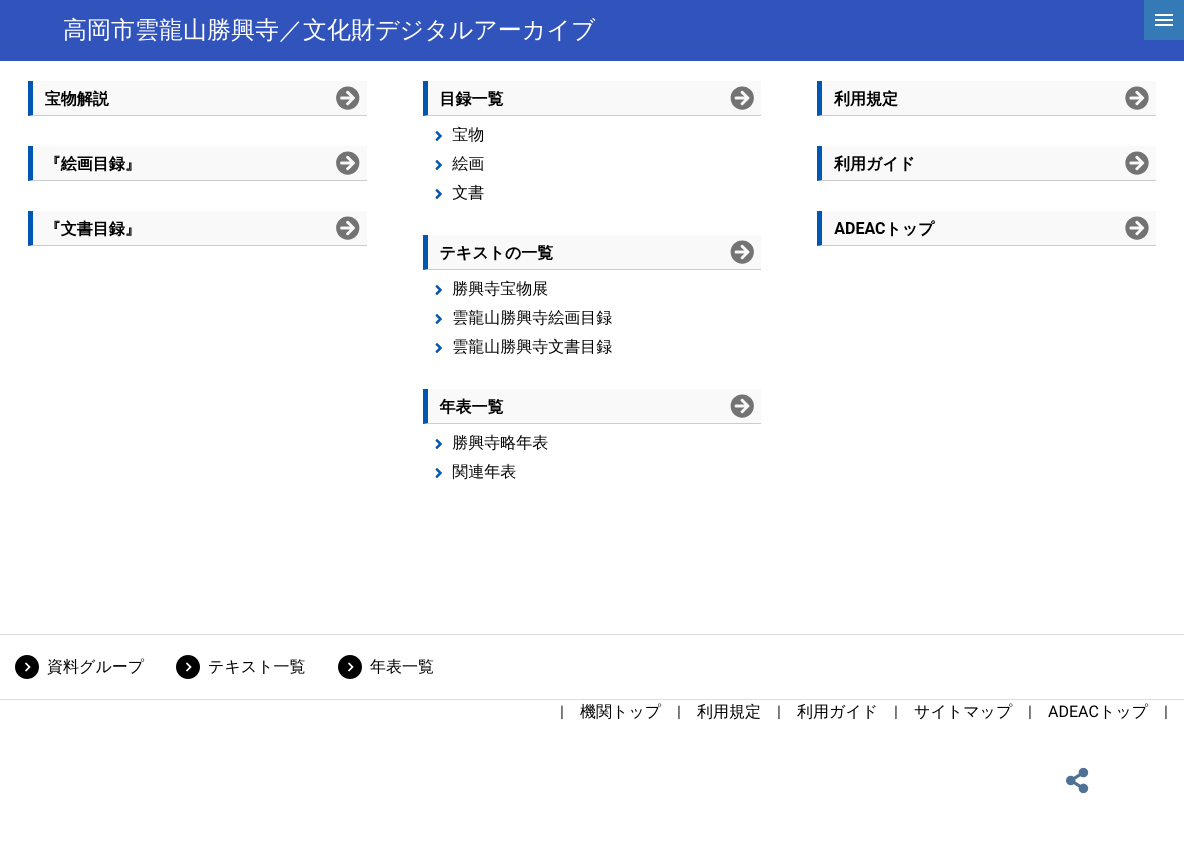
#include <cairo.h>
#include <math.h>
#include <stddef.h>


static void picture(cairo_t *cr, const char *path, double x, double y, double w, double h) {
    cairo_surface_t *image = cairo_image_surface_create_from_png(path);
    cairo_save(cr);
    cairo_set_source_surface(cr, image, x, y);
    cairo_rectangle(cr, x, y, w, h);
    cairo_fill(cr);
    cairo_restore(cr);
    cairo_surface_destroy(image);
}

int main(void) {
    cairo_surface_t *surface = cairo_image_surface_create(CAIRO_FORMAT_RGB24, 1184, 863);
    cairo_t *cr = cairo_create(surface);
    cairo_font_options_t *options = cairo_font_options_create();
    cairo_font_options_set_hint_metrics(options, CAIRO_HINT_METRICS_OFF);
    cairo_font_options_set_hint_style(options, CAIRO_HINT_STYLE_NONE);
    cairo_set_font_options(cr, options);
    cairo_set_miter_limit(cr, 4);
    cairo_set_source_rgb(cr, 1, 1, 1);
    cairo_paint(cr);
    cairo_set_source_rgb(cr, 0.192, 0.325, 0.737);
    cairo_rectangle(cr, 0, 0, 1184, 61);
    cairo_fill(cr);
    cairo_select_font_face(cr, "WenQuanYi Zen Hei Medium", CAIRO_FONT_SLANT_NORMAL, CAIRO_FONT_WEIGHT_NORMAL);
    cairo_set_font_size(cr, 24);
    cairo_set_source_rgb(cr, 1, 1, 1);
    cairo_move_to(cr, 63, 38);
    cairo_show_text(cr, "高岡市雲龍山勝興寺／文化財デジタルアーカイブ");
    cairo_set_source_rgb(cr, 0.2, 0.478, 0.718);
    cairo_rectangle(cr, 1144, 0, 40, 40);
    cairo_fill(cr);
    cairo_set_source_rgb(cr, 1, 1, 1);
    cairo_rectangle(cr, 1155, 19, 18, 2);
    cairo_fill(cr);
    cairo_rectangle(cr, 1155, 14, 18, 2);
    cairo_fill(cr);
    cairo_rectangle(cr, 1155, 24, 18, 2);
    cairo_fill(cr);
    picture(cr, "img1.png", 28, 81, 1128, 399);
    cairo_set_source_rgb(cr, 0.867, 0.867, 0.867);
    cairo_rectangle(cr, 0, 634, 1184, 1);
    cairo_fill(cr);
    cairo_rectangle(cr, 0, 699, 1184, 1);
    cairo_fill(cr);
    cairo_set_source_rgb(cr, 0, 0, 0);
    cairo_arc(cr, 27, 667, 12, 0, 2 * M_PI);
    cairo_fill(cr);
    cairo_new_path(cr);
    cairo_move_to(cr, 25.5, 663);
    cairo_line_to(cr, 29.5, 667);
    cairo_line_to(cr, 25.5, 671);
    cairo_set_source_rgb(cr, 1, 1, 1);
    cairo_set_line_width(cr, 1.7);
    cairo_stroke(cr);
    cairo_set_font_size(cr, 16);
    cairo_set_source_rgb(cr, 0, 0, 0);
    cairo_move_to(cr, 47, 672);
    cairo_show_text(cr, "資料グループ");
    cairo_new_path(cr);
    cairo_arc(cr, 188, 667, 12, 0, 2 * M_PI);
    cairo_fill(cr);
    cairo_new_path(cr);
    cairo_move_to(cr, 186.5, 663);
    cairo_line_to(cr, 190.5, 667);
    cairo_line_to(cr, 186.5, 671);
    cairo_set_source_rgb(cr, 1, 1, 1);
    cairo_stroke(cr);
    cairo_set_source_rgb(cr, 0, 0, 0);
    cairo_move_to(cr, 208, 672);
    cairo_show_text(cr, "テキスト一覧");
    cairo_new_path(cr);
    cairo_arc(cr, 350, 667, 12, 0, 2 * M_PI);
    cairo_fill(cr);
    cairo_new_path(cr);
    cairo_move_to(cr, 348.5, 663);
    cairo_line_to(cr, 352.5, 667);
    cairo_line_to(cr, 348.5, 671);
    cairo_set_source_rgb(cr, 1, 1, 1);
    cairo_stroke(cr);
    cairo_set_source_rgb(cr, 0, 0, 0);
    cairo_move_to(cr, 370, 672);
    cairo_show_text(cr, "年表一覧");
    cairo_select_font_face(cr, "Roboto", CAIRO_FONT_SLANT_NORMAL, CAIRO_FONT_WEIGHT_NORMAL);
    cairo_set_source_rgb(cr, 0.129, 0.145, 0.161);
    cairo_move_to(cr, 560, 717);
    cairo_show_text(cr, "|");
    cairo_select_font_face(cr, "WenQuanYi Zen Hei Medium", CAIRO_FONT_SLANT_NORMAL, CAIRO_FONT_WEIGHT_NORMAL);
    cairo_set_source_rgb(cr, 0, 0, 0);
    cairo_move_to(cr, 580, 717);
    cairo_show_text(cr, "機関トップ");
    cairo_select_font_face(cr, "Roboto", CAIRO_FONT_SLANT_NORMAL, CAIRO_FONT_WEIGHT_NORMAL);
    cairo_set_source_rgb(cr, 0.129, 0.145, 0.161);
    cairo_move_to(cr, 677, 717);
    cairo_show_text(cr, "|");
    cairo_select_font_face(cr, "WenQuanYi Zen Hei Medium", CAIRO_FONT_SLANT_NORMAL, CAIRO_FONT_WEIGHT_NORMAL);
    cairo_set_source_rgb(cr, 0, 0, 0);
    cairo_move_to(cr, 697, 717);
    cairo_show_text(cr, "利用規定");
    cairo_select_font_face(cr, "Roboto", CAIRO_FONT_SLANT_NORMAL, CAIRO_FONT_WEIGHT_NORMAL);
    cairo_set_source_rgb(cr, 0.129, 0.145, 0.161);
    cairo_move_to(cr, 777, 717);
    cairo_show_text(cr, "|");
    cairo_select_font_face(cr, "WenQuanYi Zen Hei Medium", CAIRO_FONT_SLANT_NORMAL, CAIRO_FONT_WEIGHT_NORMAL);
    cairo_set_source_rgb(cr, 0, 0, 0);
    cairo_move_to(cr, 797, 717);
    cairo_show_text(cr, "利用ガイド");
    cairo_select_font_face(cr, "Roboto", CAIRO_FONT_SLANT_NORMAL, CAIRO_FONT_WEIGHT_NORMAL);
    cairo_set_source_rgb(cr, 0.129, 0.145, 0.161);
    cairo_move_to(cr, 894, 717);
    cairo_show_text(cr, "|");
    cairo_select_font_face(cr, "WenQuanYi Zen Hei Medium", CAIRO_FONT_SLANT_NORMAL, CAIRO_FONT_WEIGHT_NORMAL);
    cairo_set_source_rgb(cr, 0, 0, 0);
    cairo_move_to(cr, 914, 717);
    cairo_show_text(cr, "サイトマップ");
    cairo_select_font_face(cr, "Roboto", CAIRO_FONT_SLANT_NORMAL, CAIRO_FONT_WEIGHT_NORMAL);
    cairo_set_source_rgb(cr, 0.129, 0.145, 0.161);
    cairo_move_to(cr, 1028, 717);
    cairo_show_text(cr, "|");
    cairo_set_source_rgb(cr, 0, 0, 0);
    cairo_move_to(cr, 1048, 717);
    cairo_show_text(cr, "ADEAC");
    cairo_select_font_face(cr, "WenQuanYi Zen Hei Medium", CAIRO_FONT_SLANT_NORMAL, CAIRO_FONT_WEIGHT_NORMAL);
    cairo_move_to(cr, 1099, 717);
    cairo_show_text(cr, "トップ");
    cairo_select_font_face(cr, "Roboto", CAIRO_FONT_SLANT_NORMAL, CAIRO_FONT_WEIGHT_NORMAL);
    cairo_set_source_rgb(cr, 0.129, 0.145, 0.161);
    cairo_move_to(cr, 1164, 717);
    cairo_show_text(cr, "|");
    picture(cr, "img2.png", 1066, 767, 23, 27);
    cairo_surface_write_to_png(surface, "page.png");
    cairo_font_options_destroy(options);
    cairo_destroy(cr);
    cairo_surface_destroy(surface);
    return 0;
}
